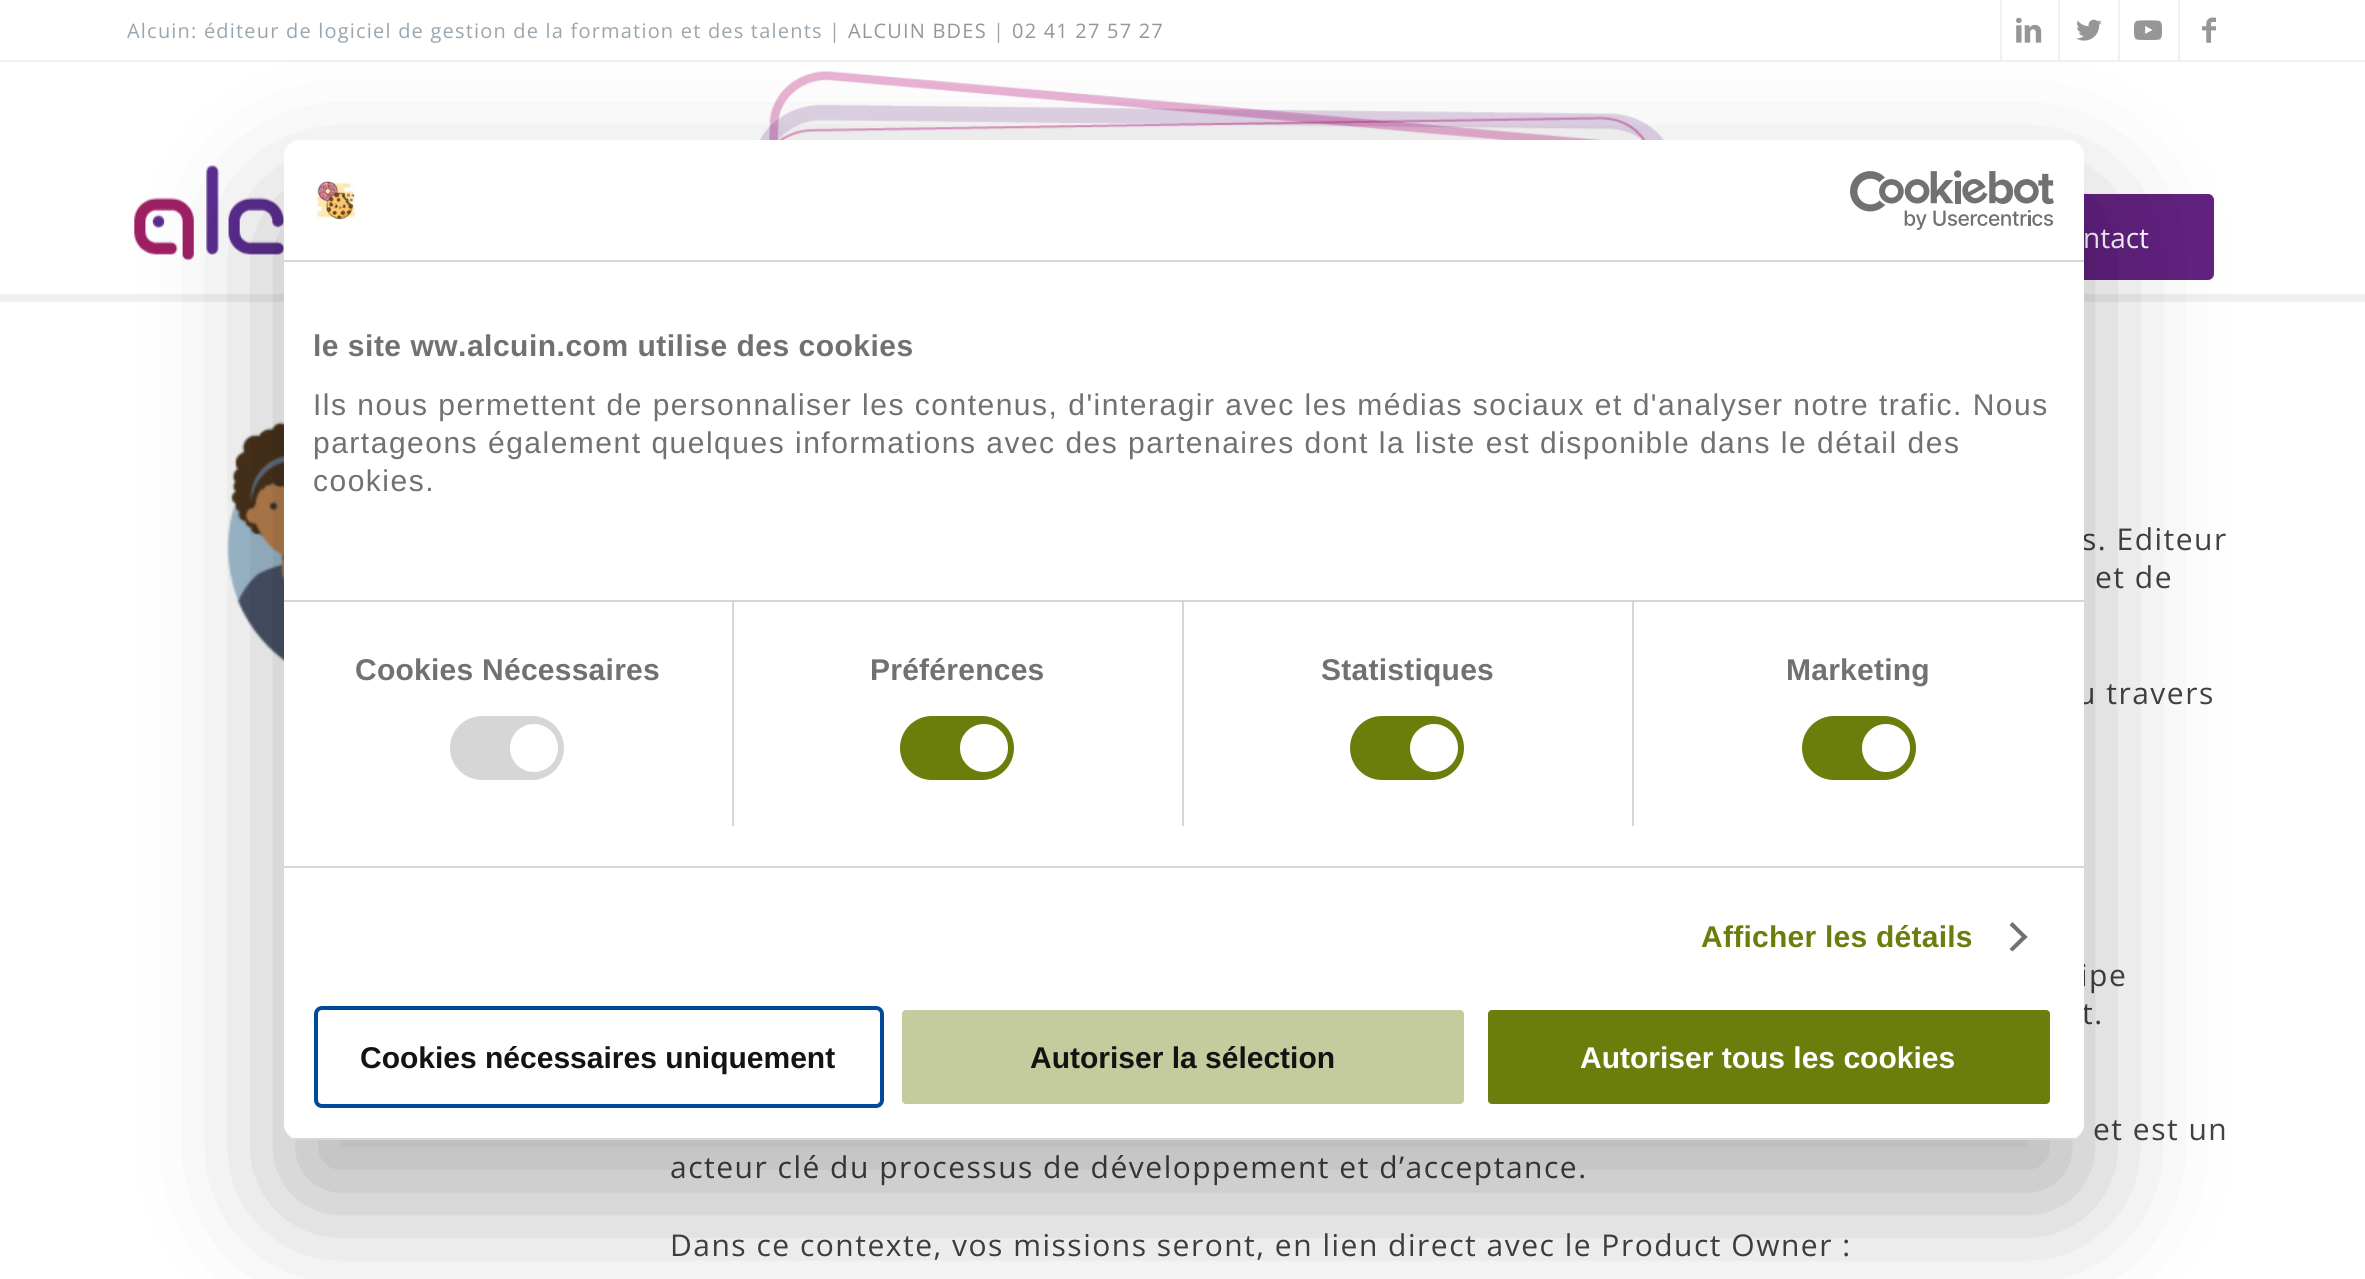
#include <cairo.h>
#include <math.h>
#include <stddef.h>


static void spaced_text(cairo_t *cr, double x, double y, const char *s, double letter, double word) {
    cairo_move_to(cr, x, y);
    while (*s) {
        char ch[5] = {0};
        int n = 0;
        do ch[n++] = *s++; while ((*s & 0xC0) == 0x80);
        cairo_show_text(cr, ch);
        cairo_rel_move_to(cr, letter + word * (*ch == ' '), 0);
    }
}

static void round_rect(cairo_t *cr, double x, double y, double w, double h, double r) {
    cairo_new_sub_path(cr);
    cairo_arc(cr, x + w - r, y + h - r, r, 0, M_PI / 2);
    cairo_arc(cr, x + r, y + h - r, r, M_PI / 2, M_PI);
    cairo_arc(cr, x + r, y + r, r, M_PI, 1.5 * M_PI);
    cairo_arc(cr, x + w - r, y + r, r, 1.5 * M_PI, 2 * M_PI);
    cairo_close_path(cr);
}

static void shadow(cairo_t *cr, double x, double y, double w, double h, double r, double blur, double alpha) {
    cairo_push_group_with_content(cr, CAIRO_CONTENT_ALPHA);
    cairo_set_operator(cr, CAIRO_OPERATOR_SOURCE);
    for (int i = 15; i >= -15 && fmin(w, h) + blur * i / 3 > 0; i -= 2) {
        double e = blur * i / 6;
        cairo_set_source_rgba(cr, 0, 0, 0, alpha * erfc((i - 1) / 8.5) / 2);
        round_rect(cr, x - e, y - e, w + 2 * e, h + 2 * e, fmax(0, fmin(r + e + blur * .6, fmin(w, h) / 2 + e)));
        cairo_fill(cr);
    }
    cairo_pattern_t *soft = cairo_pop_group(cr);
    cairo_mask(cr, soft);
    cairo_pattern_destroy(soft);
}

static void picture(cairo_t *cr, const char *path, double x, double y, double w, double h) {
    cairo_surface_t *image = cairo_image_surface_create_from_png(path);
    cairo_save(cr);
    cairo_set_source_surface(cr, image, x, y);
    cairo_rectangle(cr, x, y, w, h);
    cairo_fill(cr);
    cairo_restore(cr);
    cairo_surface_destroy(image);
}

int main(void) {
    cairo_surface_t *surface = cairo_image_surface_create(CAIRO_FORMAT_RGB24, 2365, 1279);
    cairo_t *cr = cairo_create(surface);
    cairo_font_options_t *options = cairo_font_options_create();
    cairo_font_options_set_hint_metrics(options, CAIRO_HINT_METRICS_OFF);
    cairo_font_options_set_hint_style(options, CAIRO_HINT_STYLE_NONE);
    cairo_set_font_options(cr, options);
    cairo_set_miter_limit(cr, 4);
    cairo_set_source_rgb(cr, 1, 1, 1);
    cairo_paint(cr);
    cairo_set_source_rgb(cr, 0.941, 0.941, 0.941);
    cairo_rectangle(cr, 0, 60, 2365, 2);
    cairo_fill(cr);
    cairo_select_font_face(cr, "Open Sans", CAIRO_FONT_SLANT_NORMAL, CAIRO_FONT_WEIGHT_NORMAL);
    cairo_set_font_size(cr, 20);
    cairo_set_source_rgb(cr, 0.604, 0.651, 0.686);
    spaced_text(cr, 127, 38, "Alcuin: éditeur de logiciel de gestion de la formation et des talents |", 1.2, 0);
    cairo_set_source_rgb(cr, 0.588, 0.588, 0.588);
    spaced_text(cr, 848, 38, "ALCUIN BDES", 1.2, 0);
    cairo_set_source_rgb(cr, 0.604, 0.651, 0.686);
    spaced_text(cr, 993, 38, "|", 1.2, 0);
    cairo_set_source_rgb(cr, 0.588, 0.588, 0.588);
    spaced_text(cr, 1012, 38, "02 41 27 57 27", 1.2, 0);
    cairo_set_source_rgb(cr, 0.941, 0.941, 0.941);
    cairo_rectangle(cr, 2058, 0, 2, 60);
    cairo_fill(cr);
    cairo_rectangle(cr, 2000, 0, 2, 60);
    cairo_fill(cr);
    picture(cr, "img1.png", 2016, 17, 26, 26);
    cairo_rectangle(cr, 2118, 0, 2, 60);
    cairo_fill(cr);
    picture(cr, "img2.png", 2076, 19, 26, 22);
    cairo_rectangle(cr, 2178, 0, 2, 60);
    cairo_fill(cr);
    picture(cr, "img3.png", 2134, 20, 28, 21);
    picture(cr, "img4.png", 2202, 17, 14, 26);
    cairo_rectangle(cr, 0, 294, 2365, 8);
    cairo_fill(cr);
    picture(cr, "img5.png", 134, 165, 150, 96);
    picture(cr, "img6.png", 759, 70, 905, 70);
    cairo_set_source_rgb(cr, 0.384, 0.129, 0.502);
    round_rect(cr, 1986, 196, 226, 82, 4);
    cairo_fill_preserve(cr);
    cairo_set_line_width(cr, 4);
    cairo_stroke(cr);
    cairo_set_font_size(cr, 28);
    cairo_set_source_rgb(cr, 1, 1, 1);
    cairo_move_to(cr, 2083, 248);
    cairo_show_text(cr, "ntact");
    picture(cr, "img7.png", 226, 421, 58, 242);
    cairo_set_font_size(cr, 30);
    cairo_set_source_rgb(cr, 0.259, 0.259, 0.259);
    spaced_text(cr, 2082, 550, "s. Editeur", 1.5, 0);
    spaced_text(cr, 2095, 588, "et de", 1.5, 0);
    spaced_text(cr, 2077, 704, "u travers", 1.5, 0);
    spaced_text(cr, 2080, 986, "ipe", 1.5, 0);
    spaced_text(cr, 2082, 1024, "t.", 1.5, 0);
    spaced_text(cr, 2093, 1140, "et est un", 1.5, 0);
    spaced_text(cr, 670, 1178, "acteur clé du processus de développement et d’acceptance.", 1.5, 0);
    spaced_text(cr, 670, 1256, "Dans ce contexte, vos missions seront, en lien direct avec le Product Owner :", 1.5, 0);
    cairo_set_source_rgb(cr, 0, 0, 0);
    shadow(cr, 284, 204, 1800, 1000, 16, 68, 0.3);
    cairo_set_source_rgb(cr, 1, 1, 1);
    round_rect(cr, 284, 140, 1800, 1000, 16);
    cairo_fill(cr);
    cairo_set_source_rgb(cr, 0.839, 0.839, 0.839);
    cairo_rectangle(cr, 284, 260, 1800, 2);
    cairo_fill(cr);
    picture(cr, "img8.png", 316, 180, 40, 40);
    picture(cr, "img9.png", 1850, 170, 204, 60);
    cairo_rectangle(cr, 284, 600, 1800, 2);
    cairo_fill(cr);
    cairo_select_font_face(cr, "Liberation Sans", CAIRO_FONT_SLANT_NORMAL, CAIRO_FONT_WEIGHT_BOLD);
    cairo_set_source_rgb(cr, 0.439, 0.443, 0.451);
    spaced_text(cr, 313, 356, "le site ww.alcuin.com utilise des cookies", 0.5, 0);
    cairo_select_font_face(cr, "Liberation Sans", CAIRO_FONT_SLANT_NORMAL, CAIRO_FONT_WEIGHT_NORMAL);
    spaced_text(cr, 313, 415, "Ils nous permettent de personnaliser les contenus, d'interagir avec les médias sociaux et d'analyser notre trafic. Nous", 1.5, 0);
    spaced_text(cr, 313, 453, "partageons également quelques informations avec des partenaires dont la liste est disponible dans le détail des", 1.5, 0);
    spaced_text(cr, 313, 491, "cookies.", 1.5, 0);
    cairo_set_source_rgb(cr, 0.839, 0.839, 0.839);
    cairo_rectangle(cr, 284, 866, 1800, 2);
    cairo_fill(cr);
    cairo_rectangle(cr, 732, 602, 2, 224);
    cairo_fill(cr);
    cairo_select_font_face(cr, "Liberation Sans", CAIRO_FONT_SLANT_NORMAL, CAIRO_FONT_WEIGHT_BOLD);
    cairo_set_source_rgb(cr, 0.439, 0.443, 0.451);
    spaced_text(cr, 355, 680, "Cookies Nécessaires", 0.25, 0);
    cairo_set_source_rgb(cr, 0.839, 0.839, 0.839);
    round_rect(cr, 450, 716, 114, 64, 32);
    cairo_fill(cr);
    cairo_set_source_rgb(cr, 1, 1, 1);
    cairo_arc(cr, 534, 748, 24, 0, 2 * M_PI);
    cairo_fill(cr);
    cairo_set_source_rgb(cr, 0.839, 0.839, 0.839);
    cairo_rectangle(cr, 1182, 602, 2, 224);
    cairo_fill(cr);
    cairo_set_source_rgb(cr, 0.439, 0.443, 0.451);
    spaced_text(cr, 870, 680, "Préférences", 0.25, 0);
    cairo_set_source_rgb(cr, 0.42, 0.49, 0.043);
    round_rect(cr, 900, 716, 114, 64, 32);
    cairo_fill(cr);
    cairo_set_source_rgb(cr, 1, 1, 1);
    cairo_arc(cr, 984, 748, 24, 0, 2 * M_PI);
    cairo_fill(cr);
    cairo_set_source_rgb(cr, 0.839, 0.839, 0.839);
    cairo_rectangle(cr, 1632, 602, 2, 224);
    cairo_fill(cr);
    cairo_set_source_rgb(cr, 0.439, 0.443, 0.451);
    spaced_text(cr, 1321, 680, "Statistiques", 0.25, 0);
    cairo_set_source_rgb(cr, 0.42, 0.49, 0.043);
    round_rect(cr, 1350, 716, 114, 64, 32);
    cairo_fill(cr);
    cairo_set_source_rgb(cr, 1, 1, 1);
    cairo_arc(cr, 1434, 748, 24, 0, 2 * M_PI);
    cairo_fill(cr);
    cairo_set_source_rgb(cr, 0.439, 0.443, 0.451);
    spaced_text(cr, 1786, 680, "Marketing", 0.25, 0);
    cairo_set_source_rgb(cr, 0.42, 0.49, 0.043);
    round_rect(cr, 1802, 716, 114, 64, 32);
    cairo_fill(cr);
    cairo_set_source_rgb(cr, 1, 1, 1);
    cairo_arc(cr, 1886, 748, 24, 0, 2 * M_PI);
    cairo_fill(cr);
    cairo_set_source_rgb(cr, 0.42, 0.49, 0.043);
    spaced_text(cr, 1701, 947, "Afficher les détails", 0.25, 0);
    cairo_set_source_rgb(cr, 0.439, 0.443, 0.451);
    cairo_new_path(cr);
    cairo_move_to(cr, 2012.5, 922);
    cairo_line_to(cr, 2027.5, 937);
    cairo_line_to(cr, 2024.5, 939.5);
    cairo_line_to(cr, 2009.5, 925);
    cairo_close_path(cr);
    cairo_fill(cr);
    cairo_new_path(cr);
    cairo_move_to(cr, 2024.5, 934);
    cairo_line_to(cr, 2027.5, 937);
    cairo_line_to(cr, 2012.5, 951.5);
    cairo_line_to(cr, 2009.5, 949);
    cairo_close_path(cr);
    cairo_fill(cr);
    cairo_save(cr);
    round_rect(cr, 284, 140, 1800, 1000, 16);
    cairo_clip(cr);
    cairo_set_source_rgb(cr, 0.839, 0.839, 0.839);
    cairo_rectangle(cr, 284, 1138, 1800, 2);
    cairo_fill(cr);
    cairo_restore(cr);
    round_rect(cr, 316, 1008, 566, 98, 6);
    cairo_set_source_rgb(cr, 0, 0.29, 0.6);
    cairo_stroke(cr);
    cairo_set_source_rgb(cr, 0.078, 0.078, 0.078);
    cairo_move_to(cr, 360, 1068);
    cairo_show_text(cr, "Cookies nécessaires uniquement");
    cairo_set_source_rgb(cr, 0.769, 0.796, 0.616);
    round_rect(cr, 900, 1008, 566, 98, 6);
    cairo_fill_preserve(cr);
    cairo_set_source_rgb(cr, 1, 1, 1);
    cairo_stroke(cr);
    cairo_set_source_rgb(cr, 0.078, 0.078, 0.078);
    cairo_move_to(cr, 1030, 1068);
    cairo_show_text(cr, "Autoriser la sélection");
    cairo_set_source_rgb(cr, 0.42, 0.49, 0.043);
    round_rect(cr, 1486, 1008, 566, 98, 6);
    cairo_fill_preserve(cr);
    cairo_set_source_rgb(cr, 1, 1, 1);
    cairo_stroke(cr);
    cairo_move_to(cr, 1580, 1068);
    cairo_show_text(cr, "Autoriser tous les cookies");
    cairo_surface_write_to_png(surface, "page.png");
    cairo_font_options_destroy(options);
    cairo_destroy(cr);
    cairo_surface_destroy(surface);
    return 0;
}
